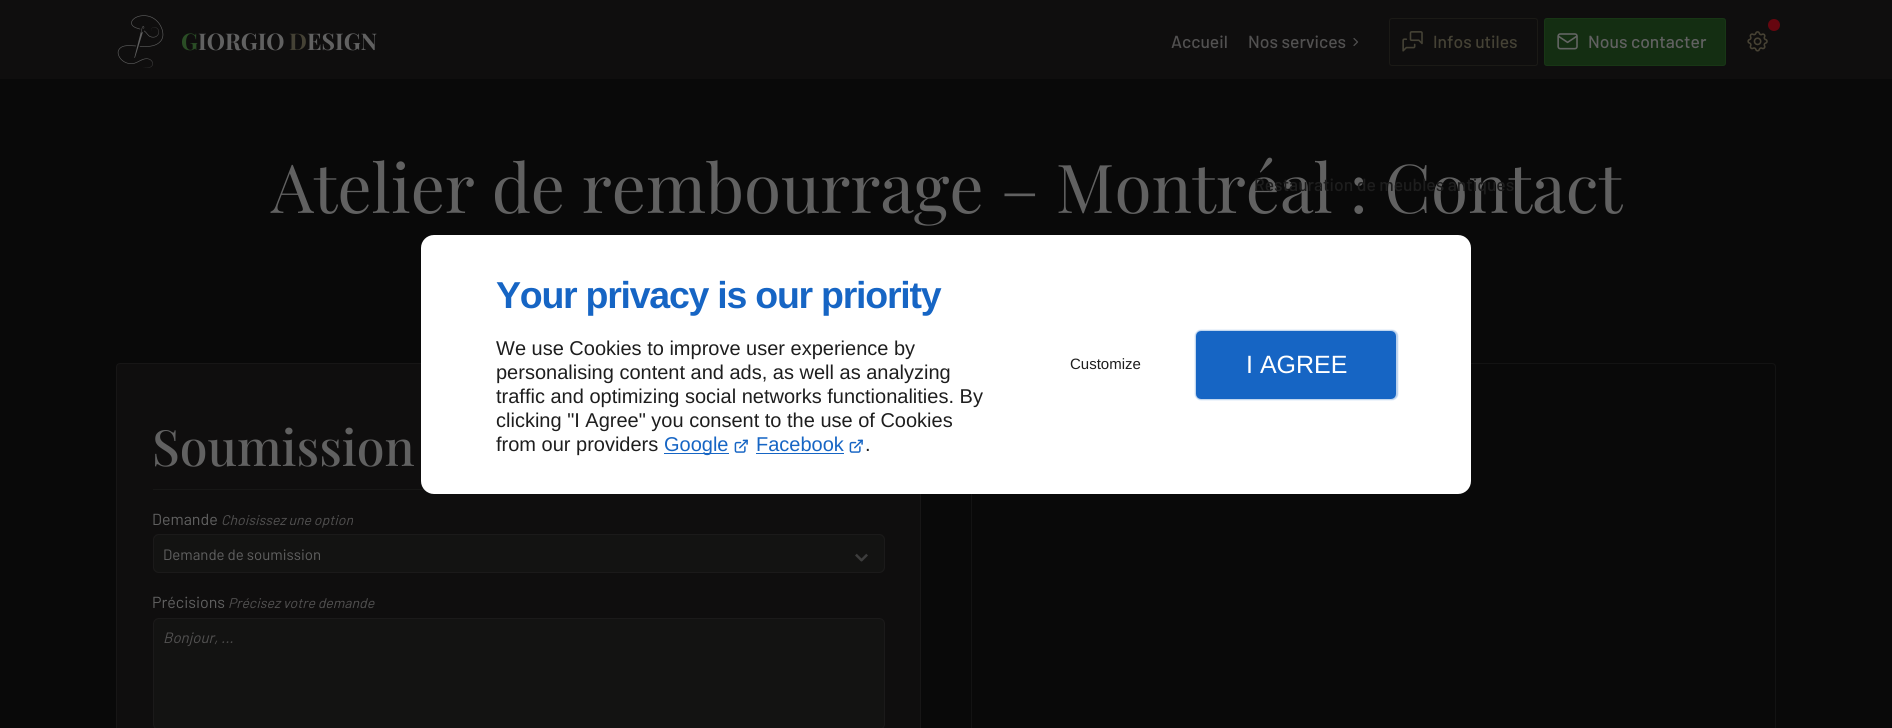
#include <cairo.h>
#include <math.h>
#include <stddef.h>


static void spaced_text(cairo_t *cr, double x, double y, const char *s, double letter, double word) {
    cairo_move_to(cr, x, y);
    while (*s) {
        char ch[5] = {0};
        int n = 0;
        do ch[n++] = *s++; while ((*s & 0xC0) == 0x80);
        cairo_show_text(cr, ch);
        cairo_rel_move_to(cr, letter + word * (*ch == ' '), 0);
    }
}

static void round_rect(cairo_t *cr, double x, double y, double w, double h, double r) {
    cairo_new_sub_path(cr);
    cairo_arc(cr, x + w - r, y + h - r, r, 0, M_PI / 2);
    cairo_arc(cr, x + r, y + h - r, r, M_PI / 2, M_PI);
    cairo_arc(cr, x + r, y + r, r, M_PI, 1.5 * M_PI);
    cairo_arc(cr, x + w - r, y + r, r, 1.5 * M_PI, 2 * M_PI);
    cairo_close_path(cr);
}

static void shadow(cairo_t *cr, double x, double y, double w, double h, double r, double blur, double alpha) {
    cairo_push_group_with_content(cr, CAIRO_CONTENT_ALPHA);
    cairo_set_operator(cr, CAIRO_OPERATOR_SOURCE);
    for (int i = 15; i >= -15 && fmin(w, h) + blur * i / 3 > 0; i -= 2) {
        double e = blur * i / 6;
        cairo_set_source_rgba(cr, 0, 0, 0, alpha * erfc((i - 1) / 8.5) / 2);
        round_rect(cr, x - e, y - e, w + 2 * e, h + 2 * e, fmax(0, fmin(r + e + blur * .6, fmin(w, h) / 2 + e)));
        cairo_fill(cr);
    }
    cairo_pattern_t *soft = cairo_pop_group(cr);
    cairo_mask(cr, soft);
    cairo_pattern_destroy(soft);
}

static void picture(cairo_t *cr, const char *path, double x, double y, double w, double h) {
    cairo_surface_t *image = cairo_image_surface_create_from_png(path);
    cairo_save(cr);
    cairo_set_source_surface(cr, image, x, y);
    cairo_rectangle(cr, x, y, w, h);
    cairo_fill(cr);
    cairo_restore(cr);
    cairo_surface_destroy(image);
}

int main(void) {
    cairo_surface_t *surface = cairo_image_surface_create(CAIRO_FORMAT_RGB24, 1892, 728);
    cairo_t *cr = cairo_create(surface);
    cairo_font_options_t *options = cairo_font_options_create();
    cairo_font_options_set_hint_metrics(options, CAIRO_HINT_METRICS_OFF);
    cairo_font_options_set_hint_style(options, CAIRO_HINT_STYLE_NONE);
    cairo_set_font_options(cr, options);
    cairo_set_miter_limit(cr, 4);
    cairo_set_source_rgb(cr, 0.039, 0.039, 0.039);
    cairo_paint(cr);
    cairo_set_source_rgb(cr, 0.059, 0.055, 0.055);
    cairo_rectangle(cr, 0, 0, 1892, 79);
    cairo_fill(cr);
    picture(cr, "img1.png", 117, 15, 47, 53);
    cairo_select_font_face(cr, "Playfair Display", CAIRO_FONT_SLANT_NORMAL, CAIRO_FONT_WEIGHT_BOLD);
    cairo_set_font_size(cr, 23);
    cairo_set_source_rgb(cr, 0.165, 0.302, 0.145);
    cairo_move_to(cr, 181, 50);
    cairo_show_text(cr, "G");
    cairo_set_source_rgb(cr, 0.38, 0.38, 0.38);
    cairo_move_to(cr, 198, 50);
    cairo_show_text(cr, "IORGIO");
    cairo_set_source_rgb(cr, 0.271, 0.259, 0.208);
    cairo_move_to(cr, 289, 50);
    cairo_show_text(cr, "D");
    cairo_set_source_rgb(cr, 0.38, 0.38, 0.38);
    cairo_move_to(cr, 307, 50);
    cairo_show_text(cr, "ESIGN");
    cairo_select_font_face(cr, "Barlow Medium", CAIRO_FONT_SLANT_NORMAL, CAIRO_FONT_WEIGHT_NORMAL);
    cairo_set_font_size(cr, 17.5);
    cairo_set_source_rgb(cr, 0.322, 0.318, 0.318);
    cairo_move_to(cr, 1171, 48);
    cairo_show_text(cr, "Accueil");
    cairo_move_to(cr, 1248, 48);
    cairo_show_text(cr, "Nos services");
    cairo_new_path(cr);
    cairo_move_to(cr, 1354, 45.5);
    cairo_line_to(cr, 1357.5, 42);
    cairo_line_to(cr, 1354, 38.5);
    cairo_set_line_width(cr, 1.2);
    cairo_set_line_cap(cr, CAIRO_LINE_CAP_ROUND);
    cairo_set_line_join(cr, CAIRO_LINE_JOIN_ROUND);
    cairo_stroke(cr);
    cairo_select_font_face(cr, "Playfair Display", CAIRO_FONT_SLANT_NORMAL, CAIRO_FONT_WEIGHT_NORMAL);
    cairo_set_font_size(cr, 67.5);
    cairo_set_source_rgb(cr, 0.38, 0.38, 0.38);
    cairo_move_to(cr, 271, 213);
    cairo_show_text(cr, "Atelier de rembourrage – Montréal : Contact");
    cairo_select_font_face(cr, "Barlow Medium", CAIRO_FONT_SLANT_NORMAL, CAIRO_FONT_WEIGHT_NORMAL);
    cairo_set_font_size(cr, 17.5);
    cairo_set_source_rgb(cr, 0.118, 0.118, 0.118);
    cairo_move_to(cr, 1254, 191);
    cairo_show_text(cr, "Restauration de meubles antiques");
    round_rect(cr, 1389.5, 18.5, 148, 47, 2.5);
    cairo_set_source_rgb(cr, 0.106, 0.102, 0.086);
    cairo_set_line_width(cr, 1);
    cairo_set_line_cap(cr, CAIRO_LINE_CAP_BUTT);
    cairo_set_line_join(cr, CAIRO_LINE_JOIN_MITER);
    cairo_stroke(cr);
    picture(cr, "img2.png", 1402, 31, 21, 21);
    cairo_set_source_rgb(cr, 0.271, 0.259, 0.208);
    cairo_move_to(cr, 1433, 48);
    cairo_show_text(cr, "Infos utiles");
    cairo_set_source_rgb(cr, 0.082, 0.18, 0.071);
    round_rect(cr, 1544, 18, 182, 48, 3);
    cairo_fill(cr);
    round_rect(cr, 1544.5, 18.5, 181, 47, 2.5);
    cairo_set_source_rgba(cr, 0.153, 0.318, 0.129, 0.25);
    cairo_stroke(cr);
    picture(cr, "img3.png", 1557, 33, 21, 17);
    cairo_set_source_rgb(cr, 0.38, 0.38, 0.38);
    cairo_move_to(cr, 1588, 48);
    cairo_show_text(cr, "Nous contacter");
    cairo_set_source_rgb(cr, 0.4, 0.027, 0.059);
    cairo_new_path(cr);
    cairo_arc(cr, 1774, 25, 6, 0, 2 * M_PI);
    cairo_fill(cr);
    picture(cr, "img4.png", 1747, 31, 21, 21);
    cairo_set_source_rgb(cr, 0.059, 0.055, 0.055);
    round_rect(cr, 116, 363, 805, 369, 4);
    cairo_fill(cr);
    round_rect(cr, 116.5, 363.5, 804, 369, 3.5);
    cairo_set_source_rgba(cr, 0.38, 0.38, 0.38, 0.1);
    cairo_stroke(cr);
    cairo_select_font_face(cr, "Playfair Display Medium", CAIRO_FONT_SLANT_NORMAL, CAIRO_FONT_WEIGHT_NORMAL);
    cairo_set_font_size(cr, 50);
    cairo_set_source_rgb(cr, 0.38, 0.38, 0.38);
    cairo_move_to(cr, 152, 466);
    cairo_show_text(cr, "Soumission");
    cairo_set_source_rgb(cr, 0.09, 0.09, 0.086);
    cairo_rectangle(cr, 153, 489, 272, 1);
    cairo_fill(cr);
    cairo_select_font_face(cr, "Barlow", CAIRO_FONT_SLANT_NORMAL, CAIRO_FONT_WEIGHT_NORMAL);
    cairo_set_font_size(cr, 16);
    cairo_set_source_rgb(cr, 0.38, 0.38, 0.38);
    cairo_move_to(cr, 152, 525);
    cairo_show_text(cr, "Demande");
    cairo_select_font_face(cr, "Barlow", CAIRO_FONT_SLANT_ITALIC, CAIRO_FONT_WEIGHT_NORMAL);
    cairo_set_font_size(cr, 14);
    cairo_set_source_rgb(cr, 0.322, 0.318, 0.318);
    cairo_move_to(cr, 221, 525);
    cairo_show_text(cr, "Choisissez une option");
    cairo_set_source_rgb(cr, 0.075, 0.075, 0.071);
    round_rect(cr, 153, 534, 732, 39, 6);
    cairo_fill(cr);
    picture(cr, "img5.png", 855, 553, 13, 9);
    round_rect(cr, 153.5, 534.5, 731, 38, 5.5);
    cairo_set_source_rgb(cr, 0.106, 0.102, 0.102);
    cairo_stroke(cr);
    cairo_select_font_face(cr, "Barlow", CAIRO_FONT_SLANT_NORMAL, CAIRO_FONT_WEIGHT_NORMAL);
    cairo_set_font_size(cr, 15);
    cairo_set_source_rgb(cr, 0.38, 0.38, 0.38);
    cairo_move_to(cr, 163, 560);
    cairo_show_text(cr, "Demande de soumission");
    cairo_set_font_size(cr, 16);
    cairo_move_to(cr, 152, 608);
    cairo_show_text(cr, "Précisions");
    cairo_select_font_face(cr, "Barlow", CAIRO_FONT_SLANT_ITALIC, CAIRO_FONT_WEIGHT_NORMAL);
    cairo_set_font_size(cr, 14);
    cairo_set_source_rgb(cr, 0.322, 0.318, 0.318);
    cairo_move_to(cr, 228, 608);
    cairo_show_text(cr, "Précisez votre demande");
    cairo_set_source_rgb(cr, 0.075, 0.075, 0.071);
    round_rect(cr, 153.5, 618.5, 731, 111, 5.5);
    cairo_fill_preserve(cr);
    cairo_set_source_rgb(cr, 0.106, 0.102, 0.102);
    cairo_stroke(cr);
    cairo_set_font_size(cr, 15);
    cairo_set_source_rgb(cr, 0.322, 0.318, 0.318);
    cairo_move_to(cr, 163, 643);
    cairo_show_text(cr, "Bonjour, ...");
    cairo_new_path(cr);
    cairo_move_to(cr, 975, 363.5);
    cairo_line_to(cr, 1772, 363.5);
    cairo_curve_to(cr, 1774, 363.5, 1775.5, 365, 1775.5, 367);
    cairo_line_to(cr, 1775.5, 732.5);
    cairo_line_to(cr, 971.5, 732.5);
    cairo_line_to(cr, 971.5, 367);
    cairo_curve_to(cr, 971.5, 365, 973, 363.5, 975, 363.5);
    cairo_close_path(cr);
    cairo_set_source_rgb(cr, 0.075, 0.075, 0.075);
    cairo_stroke(cr);
    cairo_set_source_rgb(cr, 1, 1, 1);
    round_rect(cr, 421, 235, 1050, 259, 13);
    cairo_fill(cr);
    cairo_select_font_face(cr, "Liberation Sans", CAIRO_FONT_SLANT_NORMAL, CAIRO_FONT_WEIGHT_BOLD);
    cairo_set_font_size(cr, 37.5);
    cairo_set_source_rgb(cr, 0.086, 0.396, 0.769);
    spaced_text(cr, 496, 308, "Your privacy is our priority", -1.25, 0);
    cairo_select_font_face(cr, "Liberation Sans", CAIRO_FONT_SLANT_NORMAL, CAIRO_FONT_WEIGHT_NORMAL);
    cairo_set_font_size(cr, 20);
    cairo_set_source_rgb(cr, 0.118, 0.118, 0.118);
    cairo_move_to(cr, 496, 355);
    cairo_show_text(cr, "We use Cookies to improve user experience by");
    cairo_move_to(cr, 496, 379);
    cairo_show_text(cr, "personalising content and ads, as well as analyzing");
    cairo_move_to(cr, 496, 403);
    cairo_show_text(cr, "traffic and optimizing social networks functionalities. By");
    cairo_move_to(cr, 496, 427);
    cairo_show_text(cr, "clicking \"I Agree\" you consent to the use of Cookies");
    cairo_move_to(cr, 496, 451);
    cairo_show_text(cr, "from our providers");
    cairo_set_source_rgb(cr, 0.086, 0.396, 0.769);
    cairo_rectangle(cr, 664, 453, 65, 1);
    cairo_fill(cr);
    cairo_move_to(cr, 664, 451);
    cairo_show_text(cr, "Google");
    picture(cr, "img6.png", 734, 439, 14, 14);
    cairo_move_to(cr, 756, 451);
    cairo_show_text(cr, "Facebook");
    cairo_rectangle(cr, 756, 453, 88, 1);
    cairo_fill(cr);
    picture(cr, "img6.png", 849, 439, 14, 14);
    cairo_set_source_rgb(cr, 0.118, 0.118, 0.118);
    cairo_move_to(cr, 865, 451);
    cairo_show_text(cr, ".");
    cairo_set_font_size(cr, 15);
    cairo_move_to(cr, 1070, 369);
    cairo_show_text(cr, "Customize");
    cairo_set_source_rgb(cr, 0.086, 0.396, 0.769);
    shadow(cr, 1195, 330, 203, 70, 6, 0.5, 0.3);
    cairo_set_source_rgb(cr, 0.086, 0.396, 0.769);
    round_rect(cr, 1197.5, 332.5, 197, 65, 3.5);
    cairo_fill_preserve(cr);
    cairo_set_line_width(cr, 3);
    cairo_stroke(cr);
    cairo_set_font_size(cr, 25);
    cairo_set_source_rgb(cr, 1, 1, 1);
    cairo_move_to(cr, 1246, 373);
    cairo_show_text(cr, "I AGREE");
    cairo_surface_write_to_png(surface, "page.png");
    cairo_font_options_destroy(options);
    cairo_destroy(cr);
    cairo_surface_destroy(surface);
    return 0;
}
